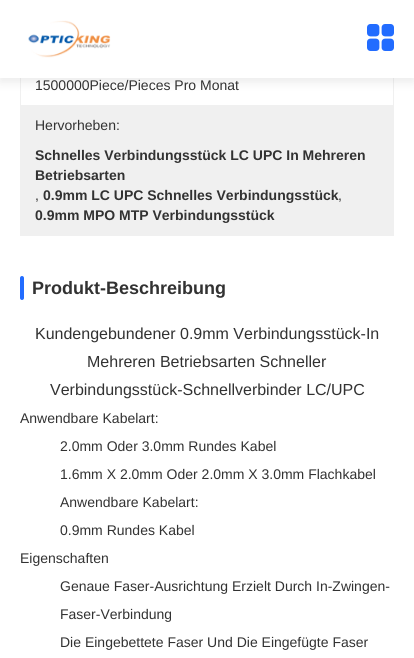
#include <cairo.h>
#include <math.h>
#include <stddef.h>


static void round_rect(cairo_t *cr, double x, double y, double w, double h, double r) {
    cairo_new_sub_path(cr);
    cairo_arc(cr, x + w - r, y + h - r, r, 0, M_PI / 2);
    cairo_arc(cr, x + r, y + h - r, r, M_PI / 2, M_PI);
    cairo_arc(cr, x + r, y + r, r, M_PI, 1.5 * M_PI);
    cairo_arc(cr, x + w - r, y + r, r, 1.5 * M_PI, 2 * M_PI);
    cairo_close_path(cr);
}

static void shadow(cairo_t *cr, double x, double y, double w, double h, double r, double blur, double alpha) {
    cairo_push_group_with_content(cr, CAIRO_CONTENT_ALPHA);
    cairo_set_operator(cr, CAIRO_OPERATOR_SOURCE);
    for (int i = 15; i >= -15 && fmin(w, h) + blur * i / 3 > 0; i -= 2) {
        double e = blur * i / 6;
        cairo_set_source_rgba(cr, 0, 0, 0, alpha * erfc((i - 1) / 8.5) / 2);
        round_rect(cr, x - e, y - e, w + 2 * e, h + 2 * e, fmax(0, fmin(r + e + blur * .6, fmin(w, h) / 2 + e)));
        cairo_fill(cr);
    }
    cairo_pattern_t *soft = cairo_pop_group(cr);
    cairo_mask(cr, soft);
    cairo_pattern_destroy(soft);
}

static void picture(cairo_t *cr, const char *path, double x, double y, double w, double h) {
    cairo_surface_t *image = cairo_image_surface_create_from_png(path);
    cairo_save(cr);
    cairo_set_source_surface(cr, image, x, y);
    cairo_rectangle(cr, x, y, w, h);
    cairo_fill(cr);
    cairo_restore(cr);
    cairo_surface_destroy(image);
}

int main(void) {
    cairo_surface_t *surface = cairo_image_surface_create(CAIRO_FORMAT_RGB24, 414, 658);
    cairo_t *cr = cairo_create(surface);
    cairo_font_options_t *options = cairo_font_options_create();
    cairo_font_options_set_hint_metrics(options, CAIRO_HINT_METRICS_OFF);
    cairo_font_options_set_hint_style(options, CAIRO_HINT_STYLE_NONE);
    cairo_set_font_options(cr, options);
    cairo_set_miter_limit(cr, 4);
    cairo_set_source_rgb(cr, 1, 1, 1);
    cairo_paint(cr);
    cairo_rectangle(cr, 20.5, -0.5, 373, 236);
    cairo_set_source_rgb(cr, 0.941, 0.941, 0.941);
    cairo_set_line_width(cr, 1);
    cairo_stroke(cr);
    cairo_set_source_rgb(cr, 0.467, 0.467, 0.467);
    shadow(cr, 0, 4, 414, 78, 0, 5, 0.15);
    cairo_set_source_rgb(cr, 1, 1, 1);
    cairo_rectangle(cr, 0, 0, 414, 78);
    cairo_fill(cr);
    picture(cr, "img1.png", 28, 20, 83, 38);
    picture(cr, "img2.png", 367, 24, 27, 27);
    cairo_select_font_face(cr, "Liberation Sans", CAIRO_FONT_SLANT_NORMAL, CAIRO_FONT_WEIGHT_NORMAL);
    cairo_set_font_size(cr, 14);
    cairo_set_source_rgb(cr, 0.196, 0.196, 0.196);
    cairo_move_to(cr, 35, 90);
    cairo_show_text(cr, "1500000Piece/Pieces Pro Monat");
    cairo_set_source_rgb(cr, 0.941, 0.941, 0.941);
    cairo_rectangle(cr, 21, 105, 372, 130);
    cairo_fill(cr);
    cairo_set_source_rgb(cr, 0.196, 0.196, 0.196);
    cairo_move_to(cr, 35, 130);
    cairo_show_text(cr, "Hervorheben:");
    cairo_select_font_face(cr, "Liberation Sans", CAIRO_FONT_SLANT_NORMAL, CAIRO_FONT_WEIGHT_BOLD);
    cairo_move_to(cr, 35, 160);
    cairo_show_text(cr, "Schnelles Verbindungsstück LC UPC In Mehreren");
    cairo_move_to(cr, 35, 180);
    cairo_show_text(cr, "Betriebsarten");
    cairo_select_font_face(cr, "Liberation Sans", CAIRO_FONT_SLANT_NORMAL, CAIRO_FONT_WEIGHT_NORMAL);
    cairo_move_to(cr, 35, 200);
    cairo_show_text(cr, ",");
    cairo_select_font_face(cr, "Liberation Sans", CAIRO_FONT_SLANT_NORMAL, CAIRO_FONT_WEIGHT_BOLD);
    cairo_move_to(cr, 43, 200);
    cairo_show_text(cr, "0.9mm LC UPC Schnelles Verbindungsstück");
    cairo_select_font_face(cr, "Liberation Sans", CAIRO_FONT_SLANT_NORMAL, CAIRO_FONT_WEIGHT_NORMAL);
    cairo_move_to(cr, 338, 200);
    cairo_show_text(cr, ",");
    cairo_select_font_face(cr, "Liberation Sans", CAIRO_FONT_SLANT_NORMAL, CAIRO_FONT_WEIGHT_BOLD);
    cairo_move_to(cr, 35, 220);
    cairo_show_text(cr, "0.9mm MPO MTP Verbindungsstück");
    cairo_set_source_rgb(cr, 0.133, 0.424, 1);
    round_rect(cr, 20, 276, 4, 24, 2);
    cairo_fill(cr);
    cairo_set_font_size(cr, 18);
    cairo_set_source_rgb(cr, 0.196, 0.196, 0.196);
    cairo_move_to(cr, 32, 294);
    cairo_show_text(cr, "Produkt-Beschreibung");
    cairo_select_font_face(cr, "Liberation Sans", CAIRO_FONT_SLANT_NORMAL, CAIRO_FONT_WEIGHT_NORMAL);
    cairo_set_font_size(cr, 16);
    cairo_move_to(cr, 35, 339);
    cairo_show_text(cr, "Kundengebundener 0.9mm Verbindungsstück-In");
    cairo_move_to(cr, 87, 367);
    cairo_show_text(cr, "Mehreren Betriebsarten Schneller");
    cairo_move_to(cr, 50, 395);
    cairo_show_text(cr, "Verbindungsstück-Schnellverbinder LC/UPC");
    cairo_set_font_size(cr, 14);
    cairo_move_to(cr, 20, 423);
    cairo_show_text(cr, "Anwendbare Kabelart:");
    cairo_move_to(cr, 60, 451);
    cairo_show_text(cr, "2.0mm Oder 3.0mm Rundes Kabel");
    cairo_move_to(cr, 60, 479);
    cairo_show_text(cr, "1.6mm X 2.0mm Oder 2.0mm X 3.0mm Flachkabel");
    cairo_move_to(cr, 60, 507);
    cairo_show_text(cr, "Anwendbare Kabelart:");
    cairo_move_to(cr, 60, 535);
    cairo_show_text(cr, "0.9mm Rundes Kabel");
    cairo_move_to(cr, 20, 563);
    cairo_show_text(cr, "Eigenschaften");
    cairo_move_to(cr, 60, 591);
    cairo_show_text(cr, "Genaue Faser-Ausrichtung Erzielt Durch In-Zwingen-");
    cairo_move_to(cr, 60, 619);
    cairo_show_text(cr, "Faser-Verbindung");
    cairo_move_to(cr, 60, 647);
    cairo_show_text(cr, "Die Eingebettete Faser Und Die Eingefügte Faser");
    cairo_surface_write_to_png(surface, "page.png");
    cairo_font_options_destroy(options);
    cairo_destroy(cr);
    cairo_surface_destroy(surface);
    return 0;
}
